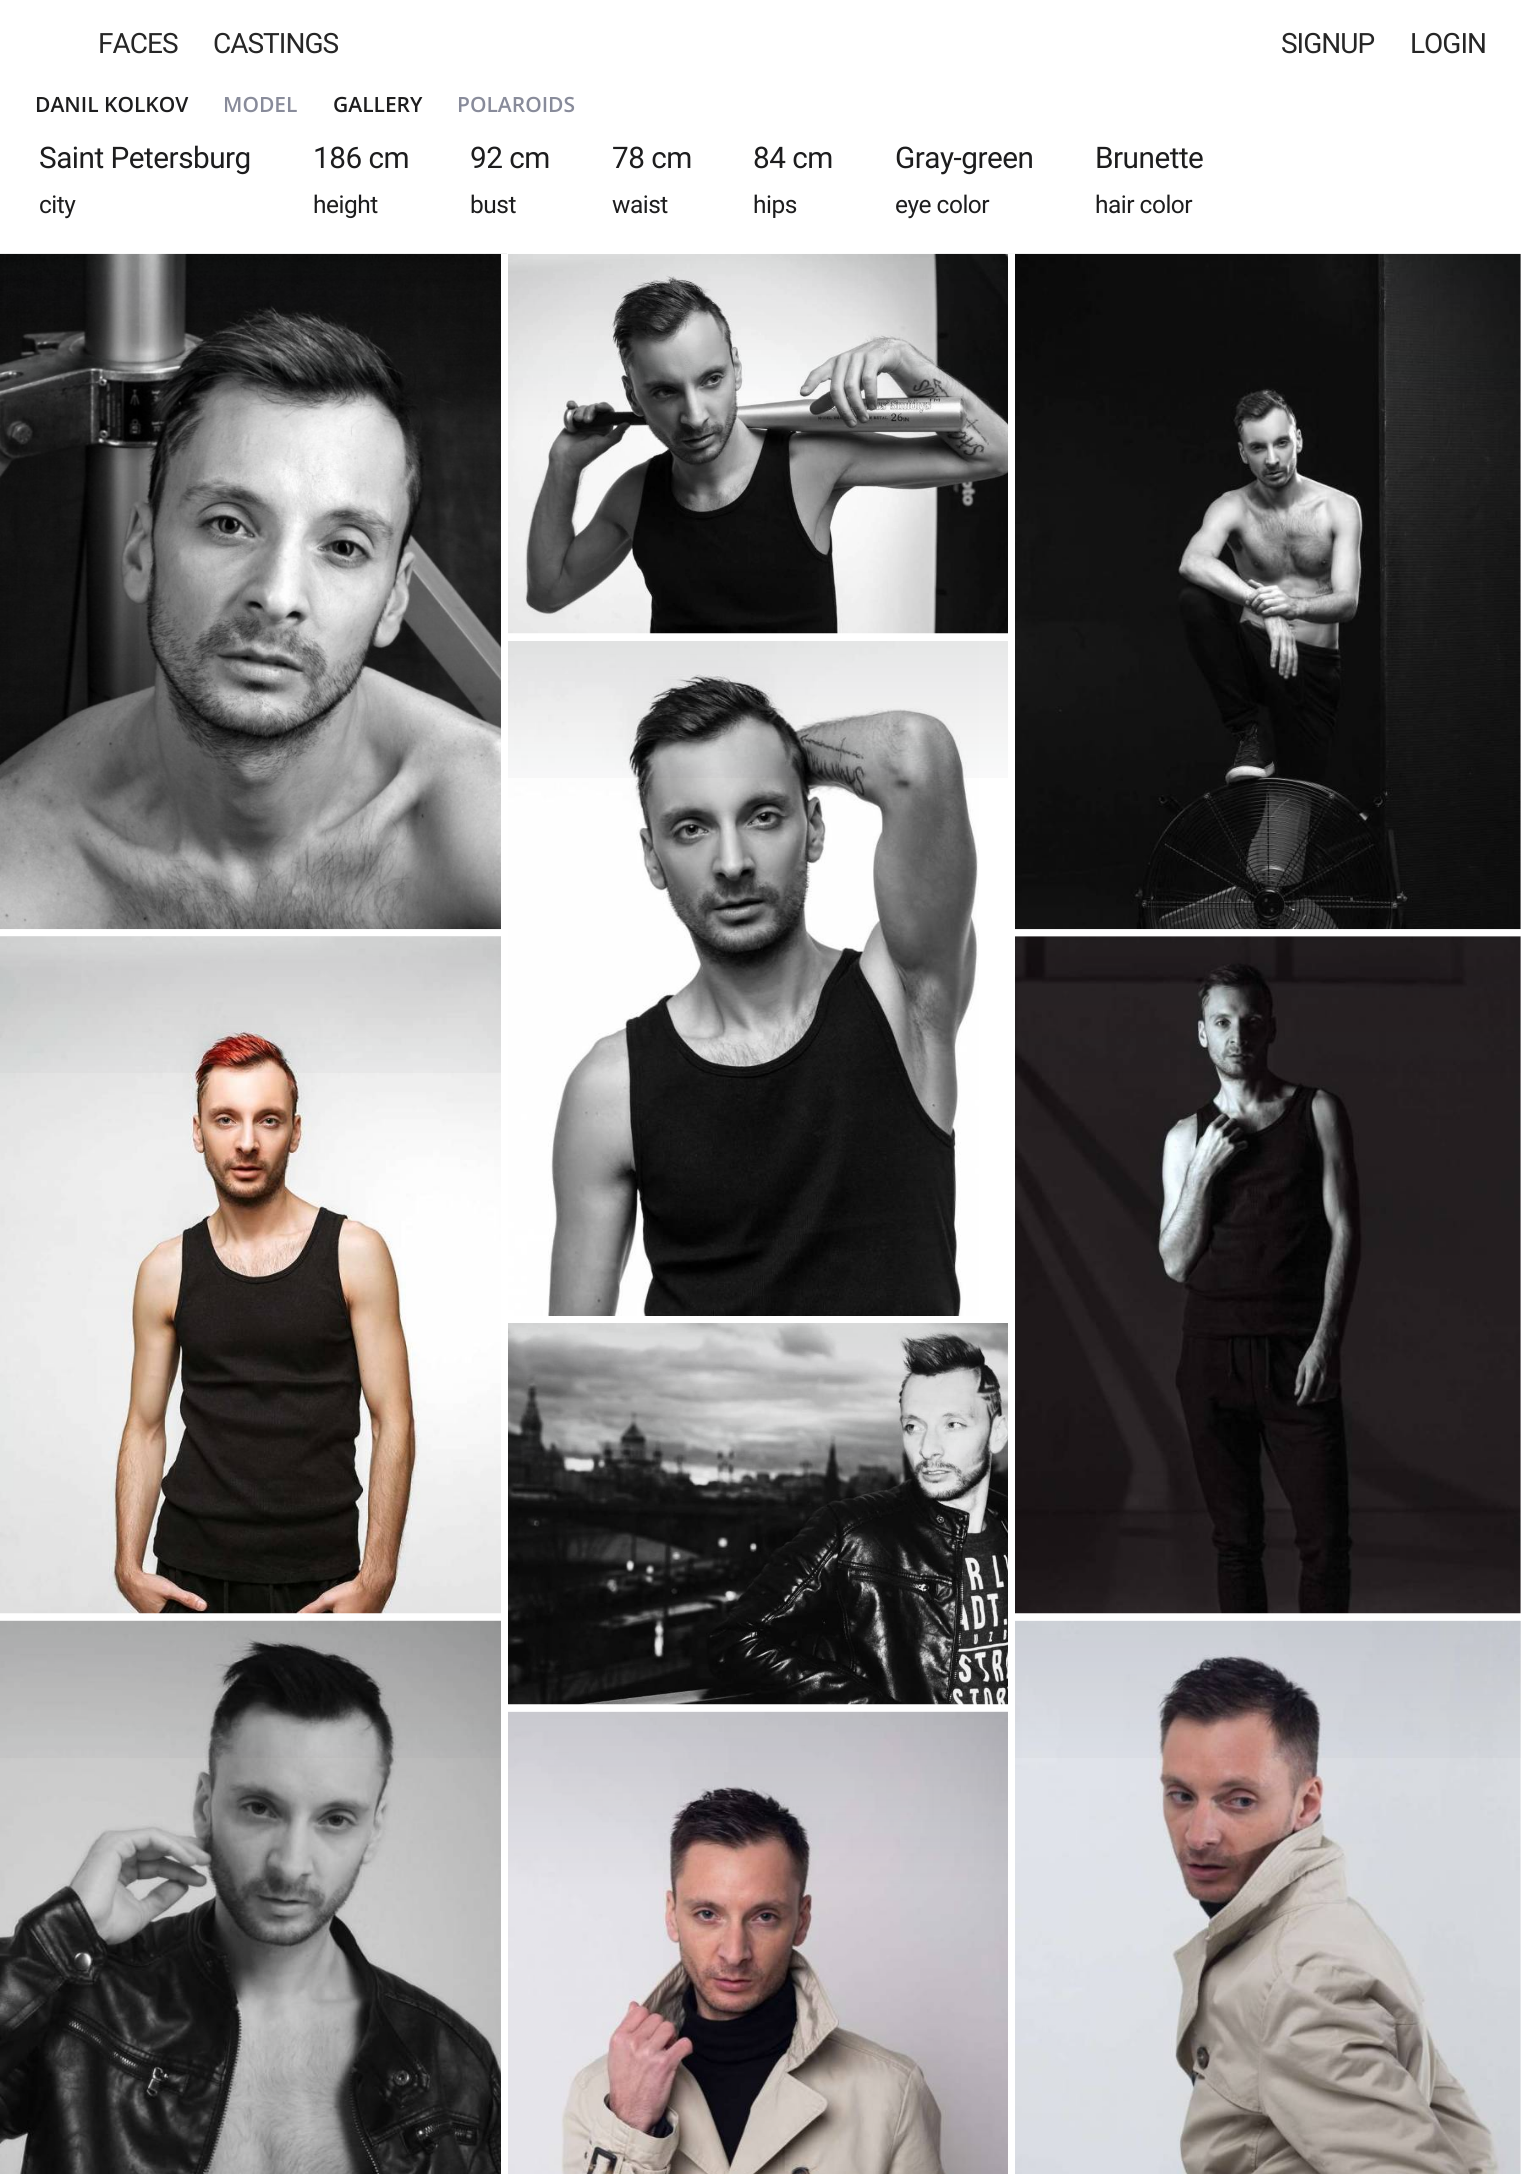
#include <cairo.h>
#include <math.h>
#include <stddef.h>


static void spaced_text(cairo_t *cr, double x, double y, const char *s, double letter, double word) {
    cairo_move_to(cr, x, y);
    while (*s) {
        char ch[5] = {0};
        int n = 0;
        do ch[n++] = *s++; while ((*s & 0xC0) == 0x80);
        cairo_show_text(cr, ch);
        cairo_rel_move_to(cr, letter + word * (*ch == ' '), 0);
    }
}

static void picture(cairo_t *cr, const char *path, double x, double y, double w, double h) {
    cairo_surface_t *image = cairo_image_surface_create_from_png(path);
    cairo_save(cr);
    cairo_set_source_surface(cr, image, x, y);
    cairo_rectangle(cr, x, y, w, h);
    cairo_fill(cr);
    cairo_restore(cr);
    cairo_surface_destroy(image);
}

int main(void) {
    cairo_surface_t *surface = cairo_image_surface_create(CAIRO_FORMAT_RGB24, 1521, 2174);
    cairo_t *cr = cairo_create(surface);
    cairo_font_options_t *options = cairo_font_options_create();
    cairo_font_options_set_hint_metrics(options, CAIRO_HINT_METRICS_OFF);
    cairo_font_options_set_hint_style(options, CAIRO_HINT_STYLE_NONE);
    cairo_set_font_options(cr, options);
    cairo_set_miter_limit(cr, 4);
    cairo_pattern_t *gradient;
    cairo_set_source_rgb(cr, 1, 1, 1);
    cairo_paint(cr);
    cairo_select_font_face(cr, "Roboto", CAIRO_FONT_SLANT_NORMAL, CAIRO_FONT_WEIGHT_NORMAL);
    cairo_set_font_size(cr, 28);
    cairo_set_source_rgb(cr, 0.149, 0.149, 0.149);
    spaced_text(cr, 98, 53, "FACES", -1, 0);
    spaced_text(cr, 213, 53, "CASTINGS", -1, 0);
    spaced_text(cr, 1281, 53, "SIGNUP", -1, 0);
    spaced_text(cr, 1410, 53, "LOGIN", -1, 0);
    cairo_select_font_face(cr, "Open Sans SemiBold", CAIRO_FONT_SLANT_NORMAL, CAIRO_FONT_WEIGHT_NORMAL);
    cairo_set_font_size(cr, 21);
    cairo_set_source_rgb(cr, 0.114, 0.114, 0.118);
    cairo_move_to(cr, 35, 112);
    cairo_show_text(cr, "DANIL KOLKOV");
    cairo_set_source_rgb(cr, 0.533, 0.545, 0.604);
    cairo_move_to(cr, 223, 112);
    cairo_show_text(cr, "MODEL");
    cairo_set_source_rgb(cr, 0.114, 0.114, 0.118);
    cairo_move_to(cr, 333, 112);
    cairo_show_text(cr, "GALLERY");
    cairo_set_source_rgb(cr, 0.533, 0.545, 0.604);
    cairo_move_to(cr, 457, 112);
    cairo_show_text(cr, "POLAROIDS");
    cairo_select_font_face(cr, "Roboto", CAIRO_FONT_SLANT_NORMAL, CAIRO_FONT_WEIGHT_NORMAL);
    cairo_set_font_size(cr, 29.75);
    cairo_set_source_rgb(cr, 0.114, 0.114, 0.118);
    spaced_text(cr, 39, 168, "Saint Petersburg", -0.5, 0);
    cairo_set_font_size(cr, 24.5);
    spaced_text(cr, 39, 213, "city", -0.5, 0);
    cairo_set_font_size(cr, 29.75);
    spaced_text(cr, 313, 168, "186 cm", -0.5, 0);
    cairo_set_font_size(cr, 24.5);
    spaced_text(cr, 313, 213, "height", -0.5, 0);
    cairo_set_font_size(cr, 29.75);
    spaced_text(cr, 470, 168, "92 cm", -0.5, 0);
    cairo_set_font_size(cr, 24.5);
    spaced_text(cr, 470, 213, "bust", -0.5, 0);
    cairo_set_font_size(cr, 29.75);
    spaced_text(cr, 612, 168, "78 cm", -0.5, 0);
    cairo_set_font_size(cr, 24.5);
    spaced_text(cr, 612, 213, "waist", -0.5, 0);
    cairo_set_font_size(cr, 29.75);
    spaced_text(cr, 753, 168, "84 cm", -0.5, 0);
    cairo_set_font_size(cr, 24.5);
    spaced_text(cr, 753, 213, "hips", -0.5, 0);
    cairo_set_font_size(cr, 29.75);
    spaced_text(cr, 895, 168, "Gray-green", -0.5, 0);
    cairo_set_font_size(cr, 24.5);
    spaced_text(cr, 895, 213, "eye color", -0.5, 0);
    cairo_set_font_size(cr, 29.75);
    spaced_text(cr, 1095, 168, "Brunette", -0.5, 0);
    cairo_set_font_size(cr, 24.5);
    spaced_text(cr, 1095, 213, "hair color", -0.5, 0);
    picture(cr, "img1.png", 0, 253, 507, 677);
    gradient = cairo_pattern_create_linear(254, 429, 254, 254);
    cairo_pattern_add_color_stop_rgba(gradient, 0, 0.047, 0.067, 0.086, 0);
    cairo_pattern_add_color_stop_rgba(gradient, 1, 0.047, 0.067, 0.086, 0.1);
    cairo_set_source(cr, gradient);
    cairo_pattern_destroy(gradient);
    cairo_rectangle(cr, 0, 254, 385, 137);
    cairo_fill(cr);
    cairo_set_source_rgb(cr, 1, 1, 1);
    cairo_rectangle(cr, 501, 254, 6, 676);
    cairo_fill(cr);
    picture(cr, "img2.png", 0, 936, 501, 678);
    gradient = cairo_pattern_create_linear(254, 1111, 254, 936);
    cairo_pattern_add_color_stop_rgba(gradient, 0, 0.047, 0.067, 0.086, 0);
    cairo_pattern_add_color_stop_rgba(gradient, 1, 0.047, 0.067, 0.086, 0.1);
    cairo_set_source(cr, gradient);
    cairo_pattern_destroy(gradient);
    cairo_rectangle(cr, 0, 936, 501, 137);
    cairo_fill(cr);
    picture(cr, "img3.png", 0, 1620, 501, 554);
    gradient = cairo_pattern_create_linear(254, 1796, 254, 1621);
    cairo_pattern_add_color_stop_rgba(gradient, 0, 0.047, 0.067, 0.086, 0);
    cairo_pattern_add_color_stop_rgba(gradient, 1, 0.047, 0.067, 0.086, 0.1);
    cairo_set_source(cr, gradient);
    cairo_pattern_destroy(gradient);
    cairo_rectangle(cr, 0, 1621, 501, 137);
    cairo_fill(cr);
    picture(cr, "img4.png", 508, 253, 507, 381);
    cairo_set_source_rgb(cr, 1, 1, 1);
    cairo_rectangle(cr, 1008, 254, 7, 380);
    cairo_fill(cr);
    picture(cr, "img5.png", 508, 641, 471, 675);
    gradient = cairo_pattern_create_linear(761, 816, 761, 641);
    cairo_pattern_add_color_stop_rgba(gradient, 0, 0.047, 0.067, 0.086, 0);
    cairo_pattern_add_color_stop_rgba(gradient, 1, 0.047, 0.067, 0.086, 0.1);
    cairo_set_source(cr, gradient);
    cairo_pattern_destroy(gradient);
    cairo_rectangle(cr, 508, 641, 500, 137);
    cairo_fill(cr);
    picture(cr, "img6.png", 508, 1323, 500, 382);
    picture(cr, "img7.png", 508, 1711, 500, 463);
    picture(cr, "img8.png", 1015, 253, 506, 677);
    gradient = cairo_pattern_create_linear(1268, 429, 1268, 254);
    cairo_pattern_add_color_stop_rgba(gradient, 0, 0.047, 0.067, 0.086, 0);
    cairo_pattern_add_color_stop_rgba(gradient, 1, 0.047, 0.067, 0.086, 0.1);
    cairo_set_source(cr, gradient);
    cairo_pattern_destroy(gradient);
    cairo_rectangle(cr, 1382, 254, 139, 137);
    cairo_fill(cr);
    picture(cr, "img9.png", 1015, 936, 506, 678);
    gradient = cairo_pattern_create_linear(1268, 1111, 1268, 936);
    cairo_pattern_add_color_stop_rgba(gradient, 0, 0.047, 0.067, 0.086, 0);
    cairo_pattern_add_color_stop_rgba(gradient, 1, 0.047, 0.067, 0.086, 0.1);
    cairo_set_source(cr, gradient);
    cairo_pattern_destroy(gradient);
    cairo_rectangle(cr, 1015, 936, 506, 137);
    cairo_fill(cr);
    picture(cr, "img10.png", 1015, 1620, 506, 554);
    gradient = cairo_pattern_create_linear(1268, 1796, 1268, 1621);
    cairo_pattern_add_color_stop_rgba(gradient, 0, 0.047, 0.067, 0.086, 0);
    cairo_pattern_add_color_stop_rgba(gradient, 1, 0.047, 0.067, 0.086, 0.1);
    cairo_set_source(cr, gradient);
    cairo_pattern_destroy(gradient);
    cairo_rectangle(cr, 1015, 1621, 506, 137);
    cairo_fill(cr);
    cairo_surface_write_to_png(surface, "page.png");
    cairo_font_options_destroy(options);
    cairo_destroy(cr);
    cairo_surface_destroy(surface);
    return 0;
}
